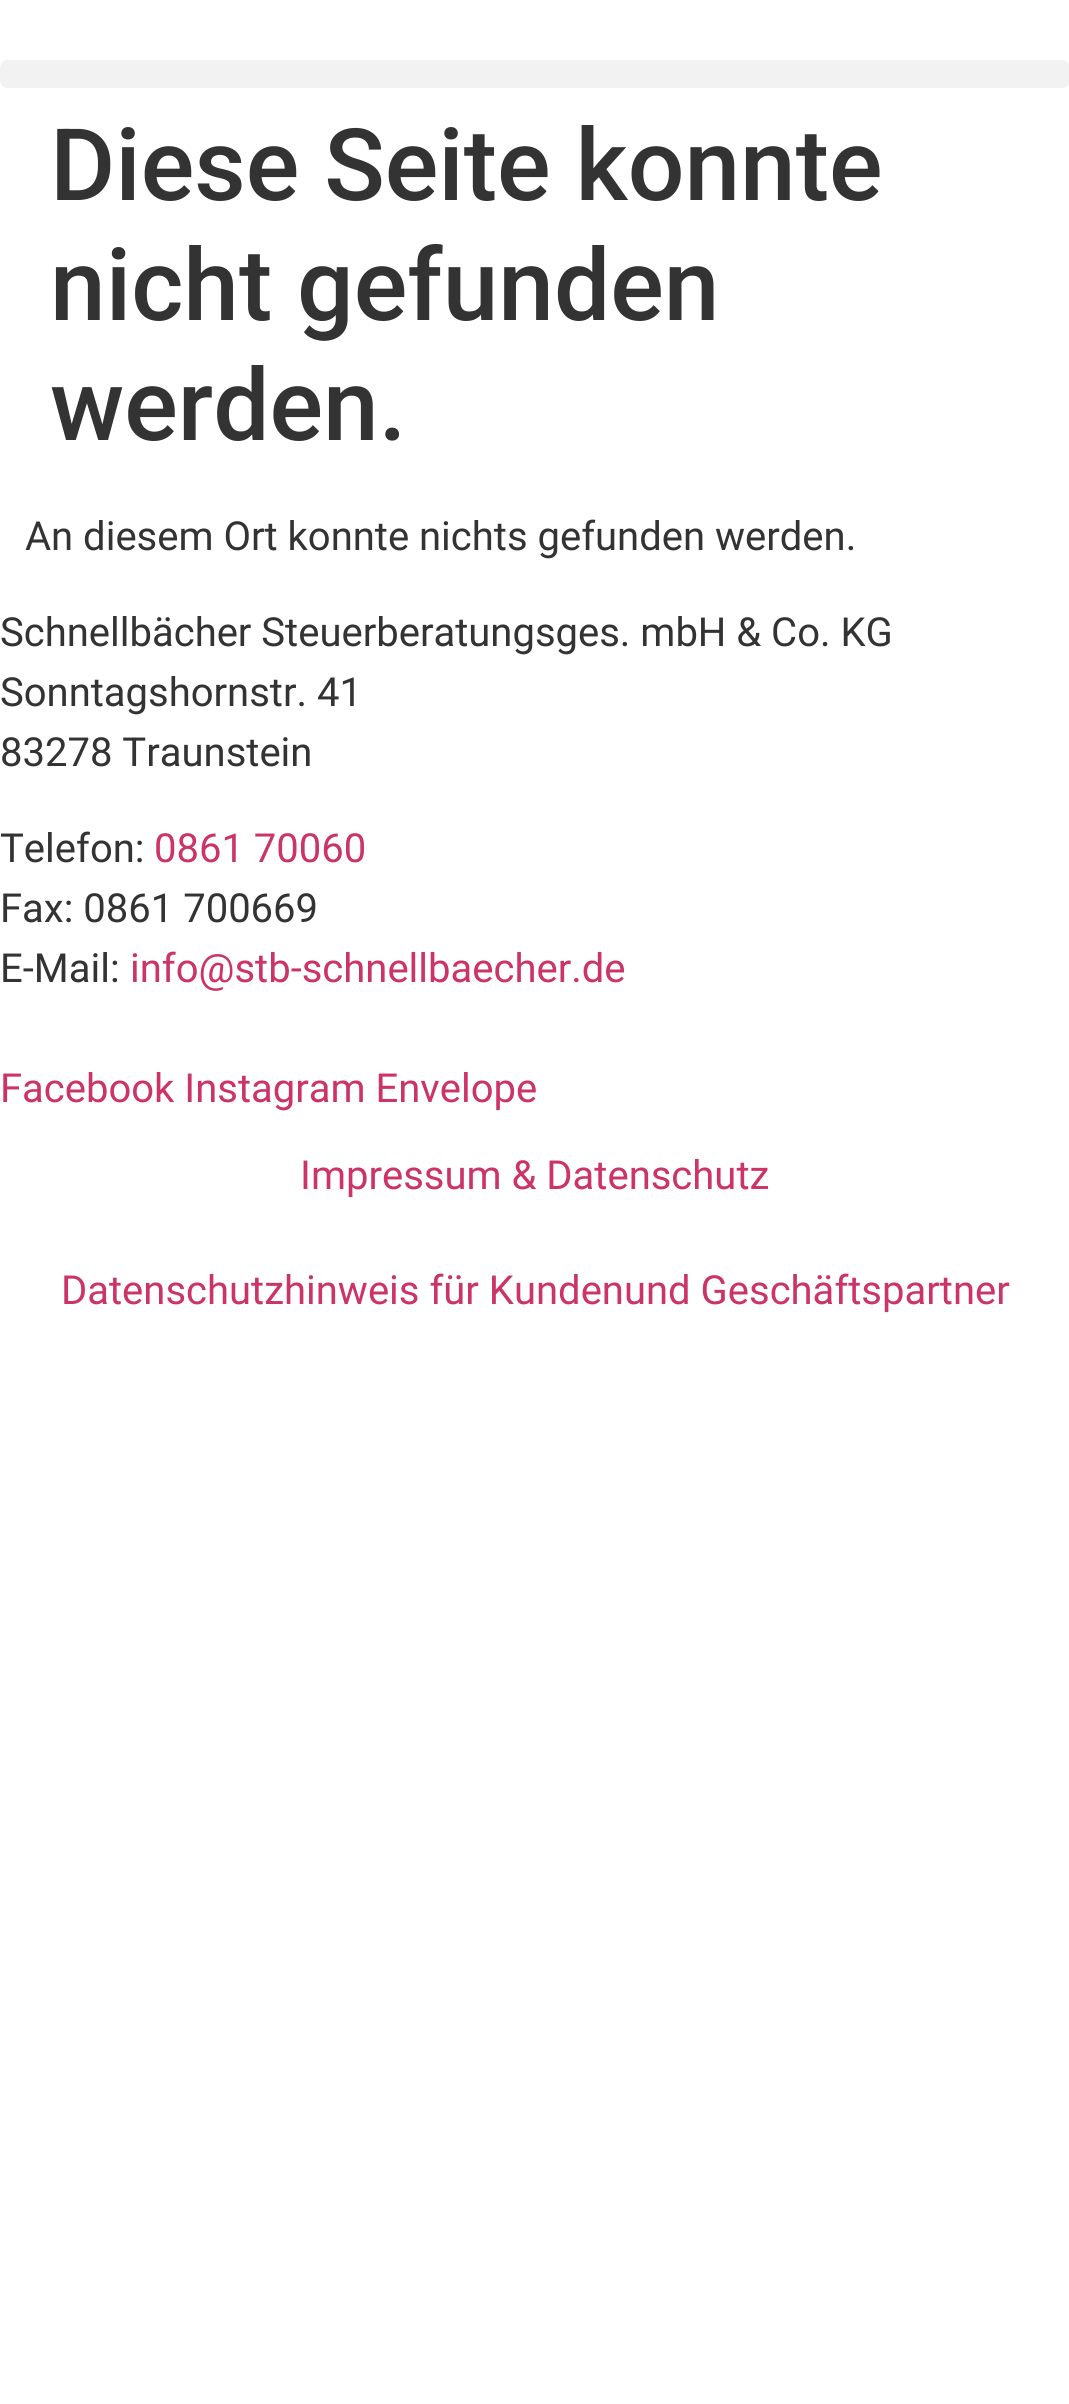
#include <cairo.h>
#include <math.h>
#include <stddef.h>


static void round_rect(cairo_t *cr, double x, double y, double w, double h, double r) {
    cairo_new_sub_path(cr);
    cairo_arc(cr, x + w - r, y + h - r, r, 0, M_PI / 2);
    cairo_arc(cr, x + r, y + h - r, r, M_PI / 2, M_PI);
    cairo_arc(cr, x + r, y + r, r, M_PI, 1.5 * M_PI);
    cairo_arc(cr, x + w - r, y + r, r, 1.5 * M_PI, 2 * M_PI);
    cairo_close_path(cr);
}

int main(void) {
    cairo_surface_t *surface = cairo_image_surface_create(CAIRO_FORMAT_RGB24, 1069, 2404);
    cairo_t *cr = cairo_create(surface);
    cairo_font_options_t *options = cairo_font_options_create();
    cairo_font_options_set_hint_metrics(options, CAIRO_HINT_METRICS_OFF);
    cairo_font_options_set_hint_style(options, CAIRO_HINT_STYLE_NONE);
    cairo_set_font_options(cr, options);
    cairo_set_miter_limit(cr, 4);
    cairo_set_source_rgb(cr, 1, 1, 1);
    cairo_paint(cr);
    cairo_set_source_rgb(cr, 0.949, 0.949, 0.949);
    round_rect(cr, 0, 60, 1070, 28, 8);
    cairo_fill(cr);
    cairo_select_font_face(cr, "Roboto Medium", CAIRO_FONT_SLANT_NORMAL, CAIRO_FONT_WEIGHT_NORMAL);
    cairo_set_font_size(cr, 100);
    cairo_set_source_rgb(cr, 0.2, 0.2, 0.2);
    cairo_move_to(cr, 50, 200);
    cairo_show_text(cr, "Diese Seite konnte");
    cairo_move_to(cr, 50, 320);
    cairo_show_text(cr, "nicht gefunden");
    cairo_move_to(cr, 50, 440);
    cairo_show_text(cr, "werden.");
    cairo_select_font_face(cr, "Roboto", CAIRO_FONT_SLANT_NORMAL, CAIRO_FONT_WEIGHT_NORMAL);
    cairo_set_font_size(cr, 40);
    cairo_move_to(cr, 25, 550);
    cairo_show_text(cr, "An diesem Ort konnte nichts gefunden werden.");
    cairo_move_to(cr, 0, 646);
    cairo_show_text(cr, "Schnellbächer Steuerberatungsges. mbH & Co. KG");
    cairo_move_to(cr, 0, 706);
    cairo_show_text(cr, "Sonntagshornstr. 41");
    cairo_move_to(cr, 0, 766);
    cairo_show_text(cr, "83278 Traunstein");
    cairo_move_to(cr, 0, 862);
    cairo_show_text(cr, "Telefon:");
    cairo_set_source_rgb(cr, 0.8, 0.2, 0.4);
    cairo_move_to(cr, 154, 862);
    cairo_show_text(cr, "0861 70060");
    cairo_set_source_rgb(cr, 0.2, 0.2, 0.2);
    cairo_move_to(cr, 0, 922);
    cairo_show_text(cr, "Fax: 0861 700669");
    cairo_move_to(cr, 0, 982);
    cairo_show_text(cr, "E-Mail:");
    cairo_set_source_rgb(cr, 0.8, 0.2, 0.4);
    cairo_move_to(cr, 130, 982);
    cairo_show_text(cr, "info@stb-schnellbaecher.de");
    cairo_move_to(cr, 0, 1102);
    cairo_show_text(cr, "Facebook Instagram Envelope");
    cairo_move_to(cr, 300, 1189);
    cairo_show_text(cr, "Impressum & Datenschutz");
    cairo_move_to(cr, 61, 1304);
    cairo_show_text(cr, "Datenschutzhinweis für Kundenund Geschäftspartner");
    cairo_surface_write_to_png(surface, "page.png");
    cairo_font_options_destroy(options);
    cairo_destroy(cr);
    cairo_surface_destroy(surface);
    return 0;
}
